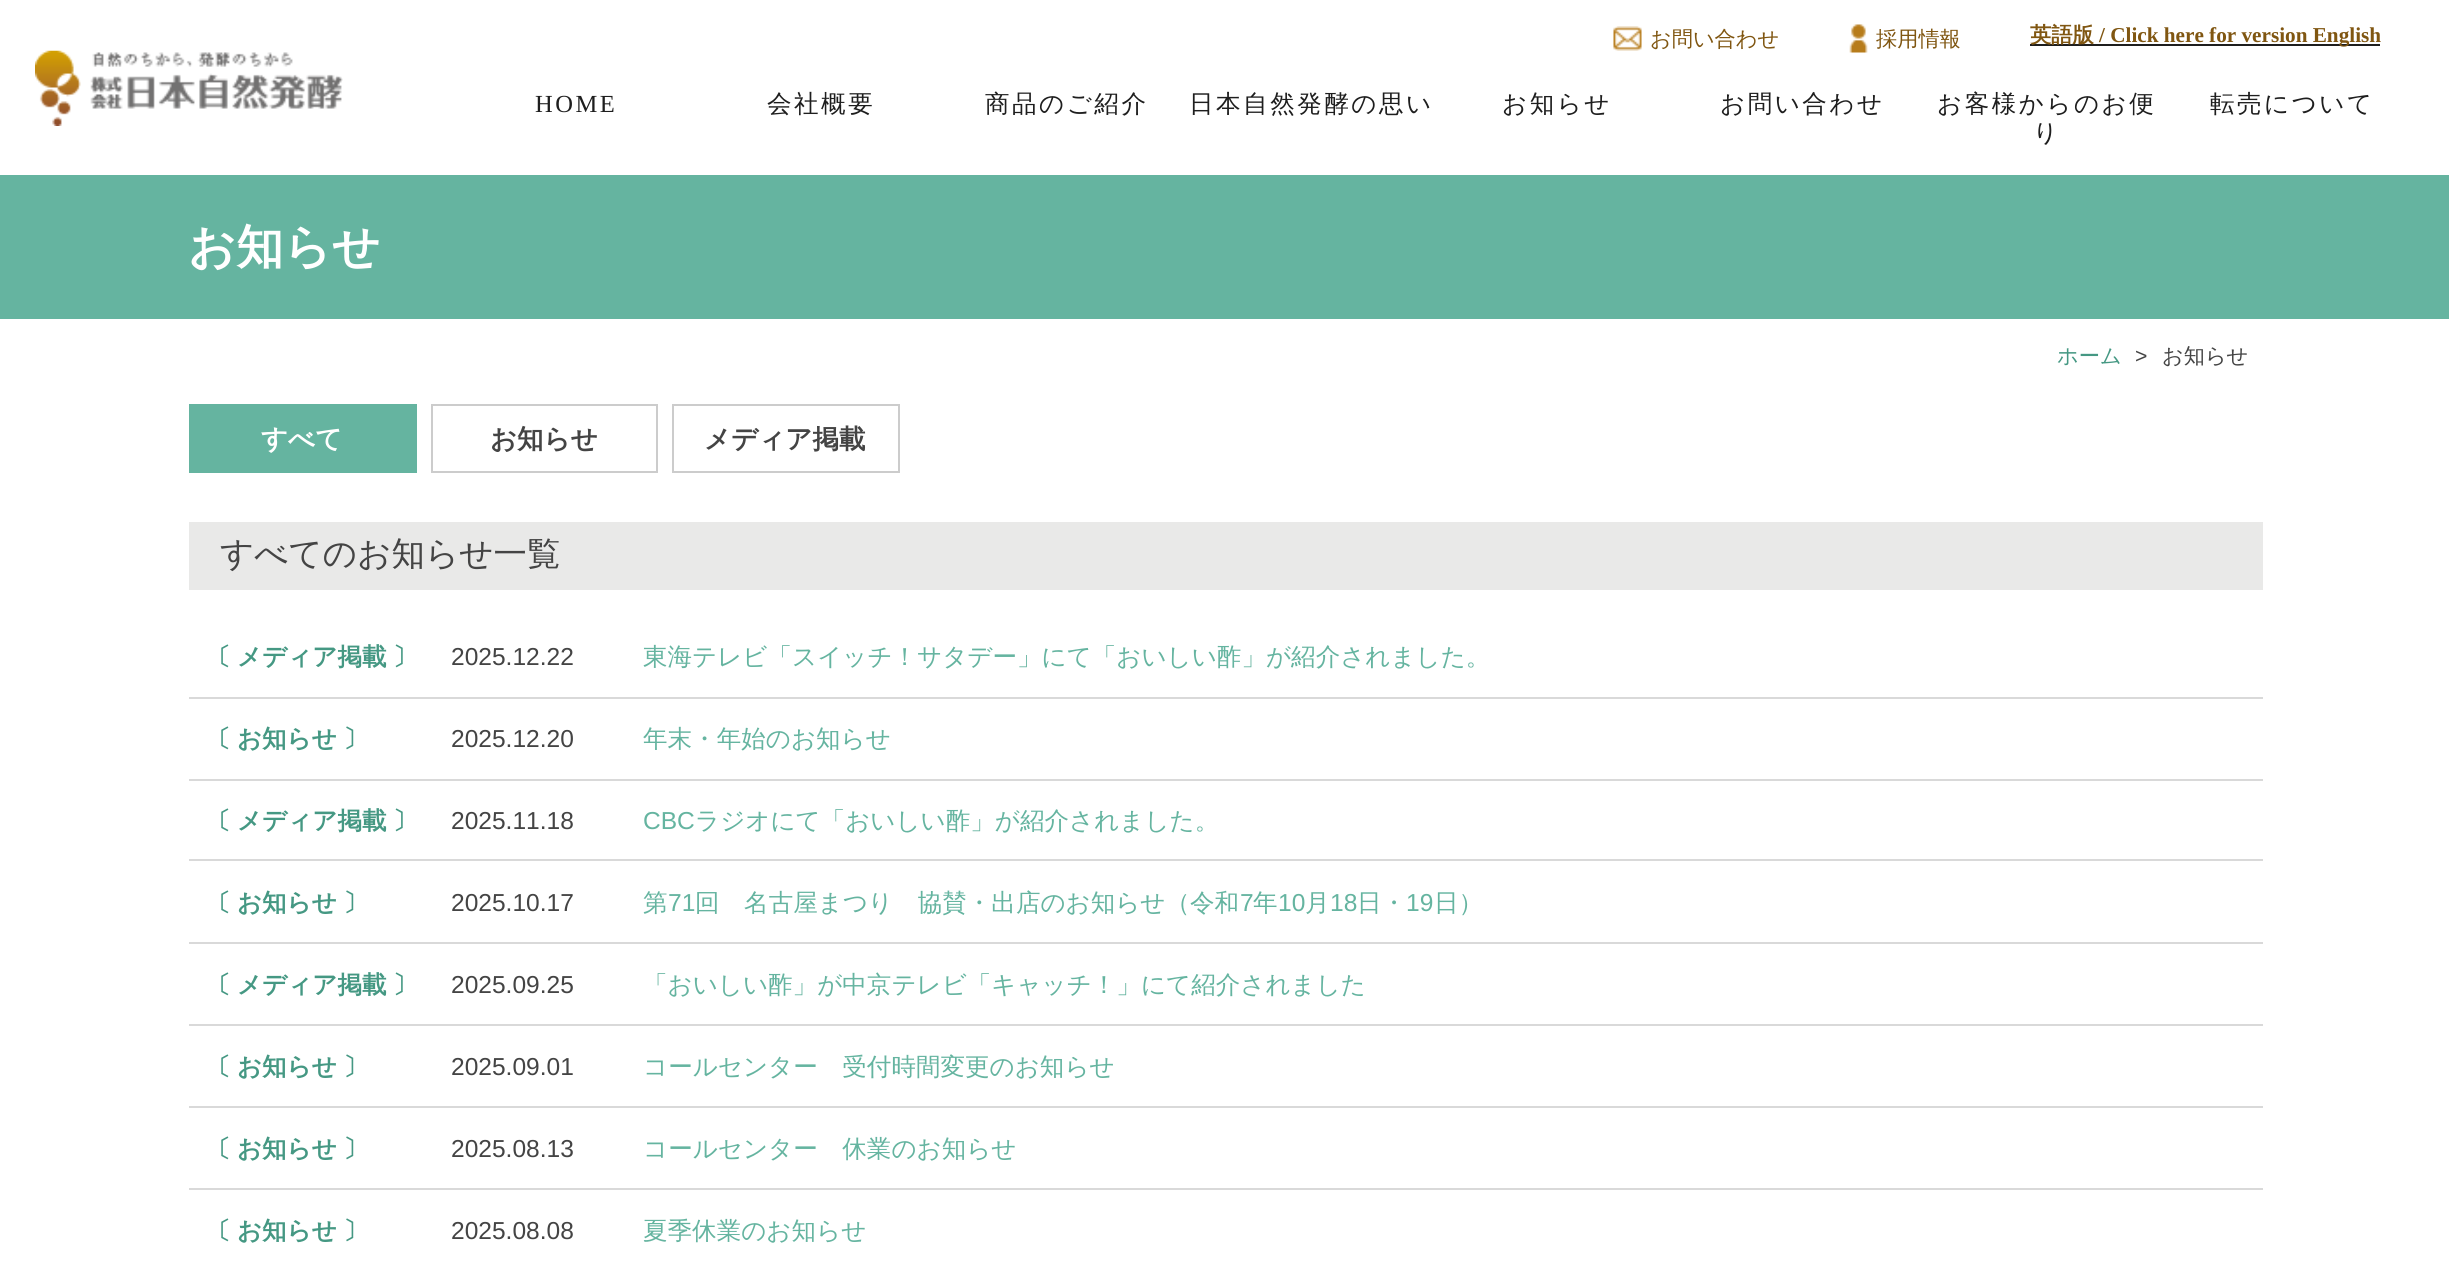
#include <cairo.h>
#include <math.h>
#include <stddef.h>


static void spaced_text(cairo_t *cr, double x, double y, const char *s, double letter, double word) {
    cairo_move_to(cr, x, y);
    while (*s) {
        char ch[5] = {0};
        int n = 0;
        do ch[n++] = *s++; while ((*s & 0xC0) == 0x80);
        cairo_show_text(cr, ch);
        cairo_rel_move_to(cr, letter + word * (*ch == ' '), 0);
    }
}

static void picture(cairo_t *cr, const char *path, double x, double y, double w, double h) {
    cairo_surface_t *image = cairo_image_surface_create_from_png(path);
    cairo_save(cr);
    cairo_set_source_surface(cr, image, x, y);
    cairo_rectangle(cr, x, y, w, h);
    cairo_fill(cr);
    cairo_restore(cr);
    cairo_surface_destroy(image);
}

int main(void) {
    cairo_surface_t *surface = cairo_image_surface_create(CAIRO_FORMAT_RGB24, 2449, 1263);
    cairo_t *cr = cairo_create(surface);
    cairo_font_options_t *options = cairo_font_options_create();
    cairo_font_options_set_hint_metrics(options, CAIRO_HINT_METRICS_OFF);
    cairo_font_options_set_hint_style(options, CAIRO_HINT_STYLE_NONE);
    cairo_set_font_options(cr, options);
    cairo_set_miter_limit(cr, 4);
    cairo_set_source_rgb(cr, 1, 1, 1);
    cairo_paint(cr);
    picture(cr, "img1.png", 35, 50, 308, 76);
    picture(cr, "img2.png", 1613, 26, 29, 25);
    cairo_select_font_face(cr, "WenQuanYi Zen Hei Medium", CAIRO_FONT_SLANT_NORMAL, CAIRO_FONT_WEIGHT_NORMAL);
    cairo_set_font_size(cr, 21.2);
    cairo_set_source_rgb(cr, 0.502, 0.337, 0.067);
    cairo_move_to(cr, 1650, 46);
    cairo_show_text(cr, "お問い合わせ");
    picture(cr, "img3.png", 1849, 24, 19, 29);
    cairo_move_to(cr, 1876, 46);
    cairo_show_text(cr, "採用情報");
    cairo_set_source_rgb(cr, 0.118, 0.118, 0.118);
    cairo_rectangle(cr, 2030, 44, 350, 2);
    cairo_fill(cr);
    cairo_select_font_face(cr, "WenQuanYi Zen Hei", CAIRO_FONT_SLANT_NORMAL, CAIRO_FONT_WEIGHT_BOLD);
    cairo_set_source_rgb(cr, 0.502, 0.337, 0.067);
    cairo_move_to(cr, 2030, 42);
    cairo_show_text(cr, "英語版");
    cairo_select_font_face(cr, "Liberation Serif", CAIRO_FONT_SLANT_NORMAL, CAIRO_FONT_WEIGHT_BOLD);
    cairo_move_to(cr, 2099, 42);
    cairo_show_text(cr, "/ Click here for version English");
    cairo_select_font_face(cr, "Liberation Serif", CAIRO_FONT_SLANT_NORMAL, CAIRO_FONT_WEIGHT_NORMAL);
    cairo_set_font_size(cr, 24.55);
    cairo_set_source_rgb(cr, 0.118, 0.118, 0.118);
    spaced_text(cr, 535, 112, "HOME", 2.5, 0);
    cairo_select_font_face(cr, "WenQuanYi Zen Hei Medium", CAIRO_FONT_SLANT_NORMAL, CAIRO_FONT_WEIGHT_NORMAL);
    spaced_text(cr, 767, 112, "会社概要", 2.5, 0);
    spaced_text(cr, 985, 112, "商品のご紹介", 2.5, 0);
    spaced_text(cr, 1189, 112, "日本自然発酵の思い", 2.5, 0);
    spaced_text(cr, 1502, 112, "お知らせ", 2.5, 0);
    spaced_text(cr, 1720, 112, "お問い合わせ", 2.5, 0);
    spaced_text(cr, 1937, 112, "お客様からのお便", 2.5, 0);
    spaced_text(cr, 2033, 141, "り", 2.5, 0);
    spaced_text(cr, 2210, 112, "転売について", 2.5, 0);
    cairo_set_source_rgb(cr, 0.396, 0.706, 0.627);
    cairo_rectangle(cr, 0, 175, 2449, 144);
    cairo_fill(cr);
    cairo_select_font_face(cr, "WenQuanYi Zen Hei", CAIRO_FONT_SLANT_NORMAL, CAIRO_FONT_WEIGHT_BOLD);
    cairo_set_font_size(cr, 47.25);
    cairo_set_source_rgb(cr, 1, 1, 1);
    cairo_move_to(cr, 188, 263);
    cairo_show_text(cr, "お知らせ");
    cairo_select_font_face(cr, "WenQuanYi Zen Hei Medium", CAIRO_FONT_SLANT_NORMAL, CAIRO_FONT_WEIGHT_NORMAL);
    cairo_set_font_size(cr, 21.2);
    cairo_set_source_rgb(cr, 0.271, 0.596, 0.514);
    cairo_move_to(cr, 2057, 363);
    cairo_show_text(cr, "ホーム");
    cairo_select_font_face(cr, "Liberation Sans", CAIRO_FONT_SLANT_NORMAL, CAIRO_FONT_WEIGHT_NORMAL);
    cairo_set_source_rgb(cr, 0.267, 0.267, 0.267);
    cairo_move_to(cr, 2135, 363);
    cairo_show_text(cr, ">");
    cairo_select_font_face(cr, "WenQuanYi Zen Hei Medium", CAIRO_FONT_SLANT_NORMAL, CAIRO_FONT_WEIGHT_NORMAL);
    cairo_move_to(cr, 2162, 363);
    cairo_show_text(cr, "お知らせ");
    cairo_set_source_rgb(cr, 0.396, 0.706, 0.627);
    cairo_rectangle(cr, 189, 404, 228, 69);
    cairo_fill(cr);
    cairo_select_font_face(cr, "WenQuanYi Zen Hei", CAIRO_FONT_SLANT_NORMAL, CAIRO_FONT_WEIGHT_BOLD);
    cairo_set_font_size(cr, 26.5);
    cairo_set_source_rgb(cr, 1, 1, 1);
    cairo_move_to(cr, 261, 448);
    cairo_show_text(cr, "すべて");
    cairo_rectangle(cr, 432, 405, 225, 67);
    cairo_set_source_rgb(cr, 0.8, 0.8, 0.8);
    cairo_stroke(cr);
    cairo_set_source_rgb(cr, 0.267, 0.267, 0.267);
    cairo_move_to(cr, 490, 448);
    cairo_show_text(cr, "お知らせ");
    cairo_rectangle(cr, 673, 405, 226, 67);
    cairo_set_source_rgb(cr, 0.8, 0.8, 0.8);
    cairo_stroke(cr);
    cairo_set_source_rgb(cr, 0.267, 0.267, 0.267);
    cairo_move_to(cr, 704, 448);
    cairo_show_text(cr, "メディア掲載");
    cairo_set_source_rgb(cr, 0.914, 0.914, 0.91);
    cairo_rectangle(cr, 189, 522, 2074, 68);
    cairo_fill(cr);
    cairo_select_font_face(cr, "WenQuanYi Zen Hei Medium", CAIRO_FONT_SLANT_NORMAL, CAIRO_FONT_WEIGHT_NORMAL);
    cairo_set_font_size(cr, 33.5);
    cairo_set_source_rgb(cr, 0.267, 0.267, 0.267);
    cairo_move_to(cr, 220, 565);
    cairo_show_text(cr, "すべてのお知らせ一覧");
    cairo_set_source_rgb(cr, 0.851, 0.851, 0.851);
    cairo_rectangle(cr, 189, 697, 2074, 2);
    cairo_fill(cr);
    cairo_select_font_face(cr, "WenQuanYi Zen Hei", CAIRO_FONT_SLANT_NORMAL, CAIRO_FONT_WEIGHT_BOLD);
    cairo_set_font_size(cr, 24.55);
    cairo_set_source_rgb(cr, 0.271, 0.596, 0.514);
    spaced_text(cr, 206, 665, "〔 メディア掲載 〕", 0, -1);
    cairo_select_font_face(cr, "Liberation Sans", CAIRO_FONT_SLANT_NORMAL, CAIRO_FONT_WEIGHT_NORMAL);
    cairo_set_source_rgb(cr, 0.267, 0.267, 0.267);
    cairo_move_to(cr, 451, 665);
    cairo_show_text(cr, "2025.12.22");
    cairo_select_font_face(cr, "WenQuanYi Zen Hei Medium", CAIRO_FONT_SLANT_NORMAL, CAIRO_FONT_WEIGHT_NORMAL);
    cairo_set_source_rgb(cr, 0.396, 0.706, 0.627);
    cairo_move_to(cr, 643, 665);
    cairo_show_text(cr, "東海テレビ「スイッチ！サタデー」にて「おいしい酢」が紹介されました。");
    cairo_set_source_rgb(cr, 0.851, 0.851, 0.851);
    cairo_rectangle(cr, 189, 779, 2074, 2);
    cairo_fill(cr);
    cairo_select_font_face(cr, "WenQuanYi Zen Hei", CAIRO_FONT_SLANT_NORMAL, CAIRO_FONT_WEIGHT_BOLD);
    cairo_set_source_rgb(cr, 0.271, 0.596, 0.514);
    spaced_text(cr, 206, 747, "〔 お知らせ 〕", 0, -1);
    cairo_select_font_face(cr, "Liberation Sans", CAIRO_FONT_SLANT_NORMAL, CAIRO_FONT_WEIGHT_NORMAL);
    cairo_set_source_rgb(cr, 0.267, 0.267, 0.267);
    cairo_move_to(cr, 451, 747);
    cairo_show_text(cr, "2025.12.20");
    cairo_select_font_face(cr, "WenQuanYi Zen Hei Medium", CAIRO_FONT_SLANT_NORMAL, CAIRO_FONT_WEIGHT_NORMAL);
    cairo_set_source_rgb(cr, 0.396, 0.706, 0.627);
    cairo_move_to(cr, 643, 747);
    cairo_show_text(cr, "年末・年始のお知らせ");
    cairo_set_source_rgb(cr, 0.851, 0.851, 0.851);
    cairo_rectangle(cr, 189, 859, 2074, 2);
    cairo_fill(cr);
    cairo_select_font_face(cr, "WenQuanYi Zen Hei", CAIRO_FONT_SLANT_NORMAL, CAIRO_FONT_WEIGHT_BOLD);
    cairo_set_source_rgb(cr, 0.271, 0.596, 0.514);
    spaced_text(cr, 206, 829, "〔 メディア掲載 〕", 0, -1);
    cairo_select_font_face(cr, "Liberation Sans", CAIRO_FONT_SLANT_NORMAL, CAIRO_FONT_WEIGHT_NORMAL);
    cairo_set_source_rgb(cr, 0.267, 0.267, 0.267);
    cairo_move_to(cr, 451, 829);
    cairo_show_text(cr, "2025.11.18");
    cairo_set_source_rgb(cr, 0.396, 0.706, 0.627);
    cairo_move_to(cr, 643, 829);
    cairo_show_text(cr, "CBC");
    cairo_select_font_face(cr, "WenQuanYi Zen Hei Medium", CAIRO_FONT_SLANT_NORMAL, CAIRO_FONT_WEIGHT_NORMAL);
    cairo_move_to(cr, 695, 829);
    cairo_show_text(cr, "ラジオにて「おいしい酢」が紹介されました。");
    cairo_set_source_rgb(cr, 0.851, 0.851, 0.851);
    cairo_rectangle(cr, 189, 942, 2074, 2);
    cairo_fill(cr);
    cairo_select_font_face(cr, "WenQuanYi Zen Hei", CAIRO_FONT_SLANT_NORMAL, CAIRO_FONT_WEIGHT_BOLD);
    cairo_set_source_rgb(cr, 0.271, 0.596, 0.514);
    spaced_text(cr, 206, 911, "〔 お知らせ 〕", 0, -1);
    cairo_select_font_face(cr, "Liberation Sans", CAIRO_FONT_SLANT_NORMAL, CAIRO_FONT_WEIGHT_NORMAL);
    cairo_set_source_rgb(cr, 0.267, 0.267, 0.267);
    cairo_move_to(cr, 451, 911);
    cairo_show_text(cr, "2025.10.17");
    cairo_select_font_face(cr, "WenQuanYi Zen Hei Medium", CAIRO_FONT_SLANT_NORMAL, CAIRO_FONT_WEIGHT_NORMAL);
    cairo_set_source_rgb(cr, 0.396, 0.706, 0.627);
    cairo_move_to(cr, 643, 911);
    cairo_show_text(cr, "第");
    cairo_select_font_face(cr, "Liberation Sans", CAIRO_FONT_SLANT_NORMAL, CAIRO_FONT_WEIGHT_NORMAL);
    cairo_move_to(cr, 668, 911);
    cairo_show_text(cr, "71");
    cairo_select_font_face(cr, "WenQuanYi Zen Hei Medium", CAIRO_FONT_SLANT_NORMAL, CAIRO_FONT_WEIGHT_NORMAL);
    cairo_move_to(cr, 695, 911);
    cairo_show_text(cr, "回　名古屋まつり　協賛・出店のお知らせ（令和");
    cairo_select_font_face(cr, "Liberation Sans", CAIRO_FONT_SLANT_NORMAL, CAIRO_FONT_WEIGHT_NORMAL);
    cairo_move_to(cr, 1240, 911);
    cairo_show_text(cr, "7");
    cairo_select_font_face(cr, "WenQuanYi Zen Hei Medium", CAIRO_FONT_SLANT_NORMAL, CAIRO_FONT_WEIGHT_NORMAL);
    cairo_move_to(cr, 1253, 911);
    cairo_show_text(cr, "年");
    cairo_select_font_face(cr, "Liberation Sans", CAIRO_FONT_SLANT_NORMAL, CAIRO_FONT_WEIGHT_NORMAL);
    cairo_move_to(cr, 1278, 911);
    cairo_show_text(cr, "10");
    cairo_select_font_face(cr, "WenQuanYi Zen Hei Medium", CAIRO_FONT_SLANT_NORMAL, CAIRO_FONT_WEIGHT_NORMAL);
    cairo_move_to(cr, 1305, 911);
    cairo_show_text(cr, "月");
    cairo_select_font_face(cr, "Liberation Sans", CAIRO_FONT_SLANT_NORMAL, CAIRO_FONT_WEIGHT_NORMAL);
    cairo_move_to(cr, 1330, 911);
    cairo_show_text(cr, "18");
    cairo_select_font_face(cr, "WenQuanYi Zen Hei Medium", CAIRO_FONT_SLANT_NORMAL, CAIRO_FONT_WEIGHT_NORMAL);
    cairo_move_to(cr, 1357, 911);
    cairo_show_text(cr, "日・");
    cairo_select_font_face(cr, "Liberation Sans", CAIRO_FONT_SLANT_NORMAL, CAIRO_FONT_WEIGHT_NORMAL);
    cairo_move_to(cr, 1406, 911);
    cairo_show_text(cr, "19");
    cairo_select_font_face(cr, "WenQuanYi Zen Hei Medium", CAIRO_FONT_SLANT_NORMAL, CAIRO_FONT_WEIGHT_NORMAL);
    cairo_move_to(cr, 1434, 911);
    cairo_show_text(cr, "日）");
    cairo_set_source_rgb(cr, 0.851, 0.851, 0.851);
    cairo_rectangle(cr, 189, 1024, 2074, 2);
    cairo_fill(cr);
    cairo_select_font_face(cr, "WenQuanYi Zen Hei", CAIRO_FONT_SLANT_NORMAL, CAIRO_FONT_WEIGHT_BOLD);
    cairo_set_source_rgb(cr, 0.271, 0.596, 0.514);
    spaced_text(cr, 206, 993, "〔 メディア掲載 〕", 0, -1);
    cairo_select_font_face(cr, "Liberation Sans", CAIRO_FONT_SLANT_NORMAL, CAIRO_FONT_WEIGHT_NORMAL);
    cairo_set_source_rgb(cr, 0.267, 0.267, 0.267);
    cairo_move_to(cr, 451, 993);
    cairo_show_text(cr, "2025.09.25");
    cairo_select_font_face(cr, "WenQuanYi Zen Hei Medium", CAIRO_FONT_SLANT_NORMAL, CAIRO_FONT_WEIGHT_NORMAL);
    cairo_set_source_rgb(cr, 0.396, 0.706, 0.627);
    cairo_move_to(cr, 643, 993);
    cairo_show_text(cr, "「おいしい酢」が中京テレビ「キャッチ！」にて紹介されました");
    cairo_set_source_rgb(cr, 0.851, 0.851, 0.851);
    cairo_rectangle(cr, 189, 1106, 2074, 2);
    cairo_fill(cr);
    cairo_select_font_face(cr, "WenQuanYi Zen Hei", CAIRO_FONT_SLANT_NORMAL, CAIRO_FONT_WEIGHT_BOLD);
    cairo_set_source_rgb(cr, 0.271, 0.596, 0.514);
    spaced_text(cr, 206, 1075, "〔 お知らせ 〕", 0, -1);
    cairo_select_font_face(cr, "Liberation Sans", CAIRO_FONT_SLANT_NORMAL, CAIRO_FONT_WEIGHT_NORMAL);
    cairo_set_source_rgb(cr, 0.267, 0.267, 0.267);
    cairo_move_to(cr, 451, 1075);
    cairo_show_text(cr, "2025.09.01");
    cairo_select_font_face(cr, "WenQuanYi Zen Hei Medium", CAIRO_FONT_SLANT_NORMAL, CAIRO_FONT_WEIGHT_NORMAL);
    cairo_set_source_rgb(cr, 0.396, 0.706, 0.627);
    cairo_move_to(cr, 643, 1075);
    cairo_show_text(cr, "コールセンター　受付時間変更のお知らせ");
    cairo_set_source_rgb(cr, 0.851, 0.851, 0.851);
    cairo_rectangle(cr, 189, 1188, 2074, 2);
    cairo_fill(cr);
    cairo_select_font_face(cr, "WenQuanYi Zen Hei", CAIRO_FONT_SLANT_NORMAL, CAIRO_FONT_WEIGHT_BOLD);
    cairo_set_source_rgb(cr, 0.271, 0.596, 0.514);
    spaced_text(cr, 206, 1157, "〔 お知らせ 〕", 0, -1);
    cairo_select_font_face(cr, "Liberation Sans", CAIRO_FONT_SLANT_NORMAL, CAIRO_FONT_WEIGHT_NORMAL);
    cairo_set_source_rgb(cr, 0.267, 0.267, 0.267);
    cairo_move_to(cr, 451, 1157);
    cairo_show_text(cr, "2025.08.13");
    cairo_select_font_face(cr, "WenQuanYi Zen Hei Medium", CAIRO_FONT_SLANT_NORMAL, CAIRO_FONT_WEIGHT_NORMAL);
    cairo_set_source_rgb(cr, 0.396, 0.706, 0.627);
    cairo_move_to(cr, 643, 1157);
    cairo_show_text(cr, "コールセンター　休業のお知らせ");
    cairo_select_font_face(cr, "WenQuanYi Zen Hei", CAIRO_FONT_SLANT_NORMAL, CAIRO_FONT_WEIGHT_BOLD);
    cairo_set_source_rgb(cr, 0.271, 0.596, 0.514);
    spaced_text(cr, 206, 1239, "〔 お知らせ 〕", 0, -1);
    cairo_select_font_face(cr, "Liberation Sans", CAIRO_FONT_SLANT_NORMAL, CAIRO_FONT_WEIGHT_NORMAL);
    cairo_set_source_rgb(cr, 0.267, 0.267, 0.267);
    cairo_move_to(cr, 451, 1239);
    cairo_show_text(cr, "2025.08.08");
    cairo_select_font_face(cr, "WenQuanYi Zen Hei Medium", CAIRO_FONT_SLANT_NORMAL, CAIRO_FONT_WEIGHT_NORMAL);
    cairo_set_source_rgb(cr, 0.396, 0.706, 0.627);
    cairo_move_to(cr, 643, 1239);
    cairo_show_text(cr, "夏季休業のお知らせ");
    cairo_surface_write_to_png(surface, "page.png");
    cairo_font_options_destroy(options);
    cairo_destroy(cr);
    cairo_surface_destroy(surface);
    return 0;
}
